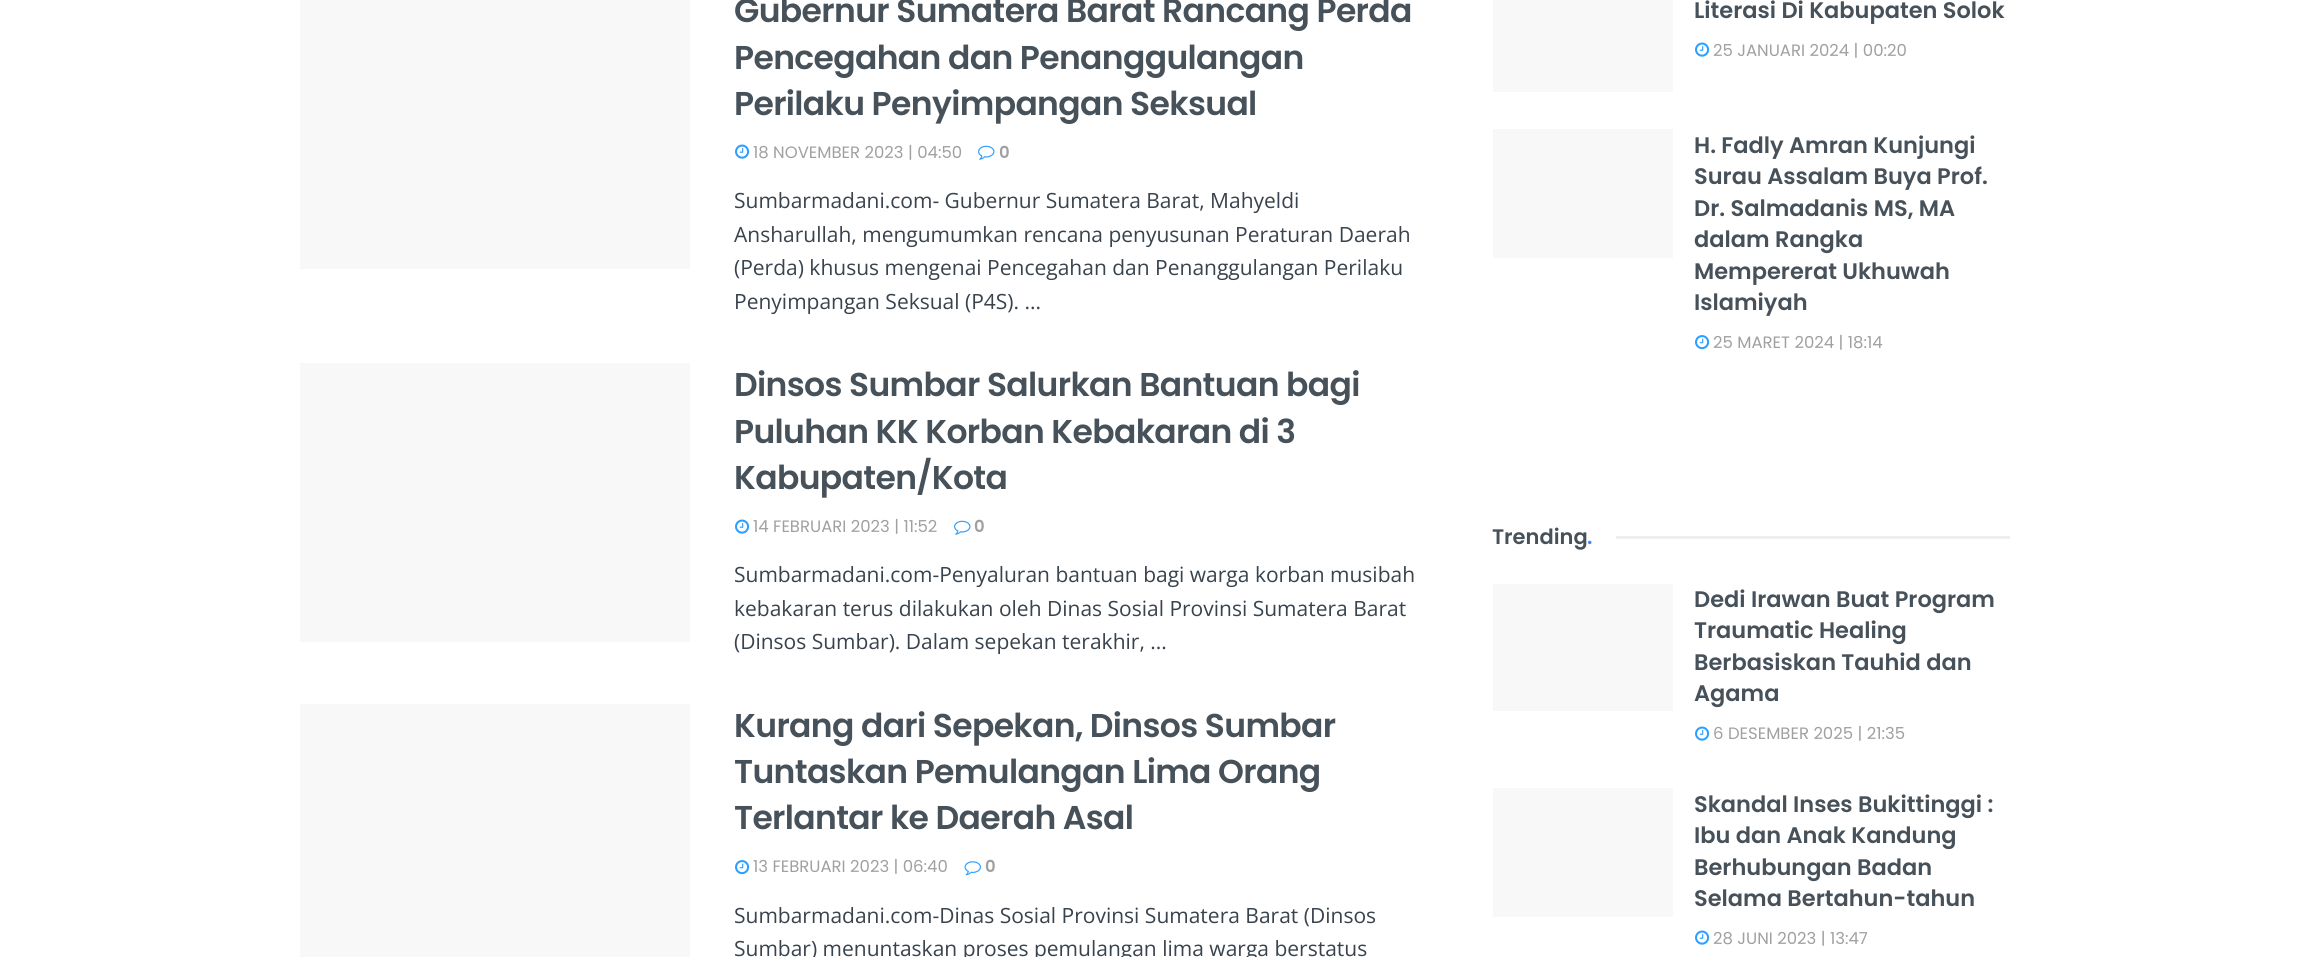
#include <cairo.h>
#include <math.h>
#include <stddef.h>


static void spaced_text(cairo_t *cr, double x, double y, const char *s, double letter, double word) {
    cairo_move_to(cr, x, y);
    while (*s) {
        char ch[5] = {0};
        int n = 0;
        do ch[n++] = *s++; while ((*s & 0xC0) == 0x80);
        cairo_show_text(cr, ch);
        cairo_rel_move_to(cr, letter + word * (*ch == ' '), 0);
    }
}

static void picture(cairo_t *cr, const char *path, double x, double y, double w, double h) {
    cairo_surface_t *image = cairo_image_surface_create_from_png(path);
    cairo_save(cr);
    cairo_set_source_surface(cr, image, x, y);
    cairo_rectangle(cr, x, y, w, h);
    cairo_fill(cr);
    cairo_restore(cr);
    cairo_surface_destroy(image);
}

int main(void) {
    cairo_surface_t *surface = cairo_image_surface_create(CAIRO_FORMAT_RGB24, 2308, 957);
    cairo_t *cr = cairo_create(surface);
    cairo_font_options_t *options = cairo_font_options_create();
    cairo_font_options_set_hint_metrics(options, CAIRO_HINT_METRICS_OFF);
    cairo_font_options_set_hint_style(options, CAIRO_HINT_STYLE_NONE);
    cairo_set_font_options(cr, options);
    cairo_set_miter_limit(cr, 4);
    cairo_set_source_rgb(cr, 1, 1, 1);
    cairo_paint(cr);
    cairo_set_source_rgb(cr, 0.969, 0.969, 0.969);
    cairo_rectangle(cr, 300, 0, 390, 269);
    cairo_fill(cr);
    cairo_select_font_face(cr, "Poppins SemiBold", CAIRO_FONT_SLANT_NORMAL, CAIRO_FONT_WEIGHT_NORMAL);
    cairo_set_font_size(cr, 33);
    cairo_set_source_rgb(cr, 0.278, 0.318, 0.353);
    spaced_text(cr, 734, 22, "Gubernur Sumatera Barat Rancang Perda", -0.65, 0);
    spaced_text(cr, 734, 69, "Pencegahan dan Penanggulangan", -0.65, 0);
    spaced_text(cr, 734, 115, "Perilaku Penyimpangan Seksual", -0.65, 0);
    picture(cr, "img1.png", 735, 144, 15, 15);
    cairo_select_font_face(cr, "Poppins", CAIRO_FONT_SLANT_NORMAL, CAIRO_FONT_WEIGHT_NORMAL);
    cairo_set_font_size(cr, 16.5);
    cairo_set_source_rgb(cr, 0.627, 0.627, 0.627);
    cairo_move_to(cr, 753, 158);
    cairo_show_text(cr, "18 NOVEMBER 2023 | 04:50");
    picture(cr, "img2.png", 978, 145, 17, 15);
    cairo_select_font_face(cr, "Poppins SemiBold", CAIRO_FONT_SLANT_NORMAL, CAIRO_FONT_WEIGHT_NORMAL);
    cairo_move_to(cr, 999, 158);
    cairo_show_text(cr, "0");
    cairo_select_font_face(cr, "Open Sans", CAIRO_FONT_SLANT_NORMAL, CAIRO_FONT_WEIGHT_NORMAL);
    cairo_set_font_size(cr, 21);
    cairo_set_source_rgb(cr, 0.224, 0.263, 0.302);
    cairo_move_to(cr, 734, 208);
    cairo_show_text(cr, "Sumbarmadani.com- Gubernur Sumatera Barat, Mahyeldi");
    cairo_move_to(cr, 734, 242);
    cairo_show_text(cr, "Ansharullah, mengumumkan rencana penyusunan Peraturan Daerah");
    cairo_move_to(cr, 734, 275);
    cairo_show_text(cr, "(Perda) khusus mengenai Pencegahan dan Penanggulangan Perilaku");
    cairo_move_to(cr, 734, 309);
    cairo_show_text(cr, "Penyimpangan Seksual (P4S). ...");
    cairo_set_source_rgb(cr, 0.969, 0.969, 0.969);
    cairo_rectangle(cr, 300, 363, 390, 279);
    cairo_fill(cr);
    cairo_select_font_face(cr, "Poppins SemiBold", CAIRO_FONT_SLANT_NORMAL, CAIRO_FONT_WEIGHT_NORMAL);
    cairo_set_font_size(cr, 33);
    cairo_set_source_rgb(cr, 0.278, 0.318, 0.353);
    spaced_text(cr, 734, 396, "Dinsos Sumbar Salurkan Bantuan bagi", -0.65, 0);
    spaced_text(cr, 734, 443, "Puluhan KK Korban Kebakaran di 3", -0.65, 0);
    spaced_text(cr, 734, 489, "Kabupaten/Kota", -0.65, 0);
    picture(cr, "img1.png", 735, 519, 15, 15);
    cairo_select_font_face(cr, "Poppins", CAIRO_FONT_SLANT_NORMAL, CAIRO_FONT_WEIGHT_NORMAL);
    cairo_set_font_size(cr, 16.5);
    cairo_set_source_rgb(cr, 0.627, 0.627, 0.627);
    cairo_move_to(cr, 753, 532);
    cairo_show_text(cr, "14 FEBRUARI 2023 | 11:52");
    picture(cr, "img2.png", 954, 520, 17, 15);
    cairo_select_font_face(cr, "Poppins SemiBold", CAIRO_FONT_SLANT_NORMAL, CAIRO_FONT_WEIGHT_NORMAL);
    cairo_move_to(cr, 974, 532);
    cairo_show_text(cr, "0");
    cairo_select_font_face(cr, "Open Sans", CAIRO_FONT_SLANT_NORMAL, CAIRO_FONT_WEIGHT_NORMAL);
    cairo_set_font_size(cr, 21);
    cairo_set_source_rgb(cr, 0.224, 0.263, 0.302);
    cairo_move_to(cr, 734, 582);
    cairo_show_text(cr, "Sumbarmadani.com-Penyaluran bantuan bagi warga korban musibah");
    cairo_move_to(cr, 734, 616);
    cairo_show_text(cr, "kebakaran terus dilakukan oleh Dinas Sosial Provinsi Sumatera Barat");
    cairo_move_to(cr, 734, 649);
    cairo_show_text(cr, "(Dinsos Sumbar). Dalam sepekan terakhir, ...");
    cairo_set_source_rgb(cr, 0.969, 0.969, 0.969);
    cairo_rectangle(cr, 300, 704, 390, 253);
    cairo_fill(cr);
    cairo_select_font_face(cr, "Poppins SemiBold", CAIRO_FONT_SLANT_NORMAL, CAIRO_FONT_WEIGHT_NORMAL);
    cairo_set_font_size(cr, 33);
    cairo_set_source_rgb(cr, 0.278, 0.318, 0.353);
    spaced_text(cr, 734, 737, "Kurang dari Sepekan, Dinsos Sumbar", -0.65, 0);
    spaced_text(cr, 734, 783, "Tuntaskan Pemulangan Lima Orang", -0.65, 0);
    spaced_text(cr, 734, 829, "Terlantar ke Daerah Asal", -0.65, 0);
    picture(cr, "img3.png", 735, 860, 15, 15);
    cairo_select_font_face(cr, "Poppins", CAIRO_FONT_SLANT_NORMAL, CAIRO_FONT_WEIGHT_NORMAL);
    cairo_set_font_size(cr, 16.5);
    cairo_set_source_rgb(cr, 0.627, 0.627, 0.627);
    cairo_move_to(cr, 753, 872);
    cairo_show_text(cr, "13 FEBRUARI 2023 | 06:40");
    picture(cr, "img4.png", 964, 861, 17, 15);
    cairo_select_font_face(cr, "Poppins SemiBold", CAIRO_FONT_SLANT_NORMAL, CAIRO_FONT_WEIGHT_NORMAL);
    cairo_move_to(cr, 985, 872);
    cairo_show_text(cr, "0");
    cairo_select_font_face(cr, "Open Sans", CAIRO_FONT_SLANT_NORMAL, CAIRO_FONT_WEIGHT_NORMAL);
    cairo_set_font_size(cr, 21);
    cairo_set_source_rgb(cr, 0.224, 0.263, 0.302);
    cairo_move_to(cr, 734, 923);
    cairo_show_text(cr, "Sumbarmadani.com-Dinas Sosial Provinsi Sumatera Barat (Dinsos");
    cairo_move_to(cr, 734, 956);
    cairo_show_text(cr, "Sumbar) menuntaskan proses pemulangan lima warga berstatus");
    cairo_set_source_rgb(cr, 0.969, 0.969, 0.969);
    cairo_rectangle(cr, 1493, 0, 180, 92);
    cairo_fill(cr);
    cairo_select_font_face(cr, "Poppins SemiBold", CAIRO_FONT_SLANT_NORMAL, CAIRO_FONT_WEIGHT_NORMAL);
    cairo_set_font_size(cr, 22.5);
    cairo_set_source_rgb(cr, 0.278, 0.318, 0.353);
    cairo_move_to(cr, 1694, 18);
    cairo_show_text(cr, "Literasi Di Kabupaten Solok");
    picture(cr, "img1.png", 1695, 42, 15, 15);
    cairo_select_font_face(cr, "Poppins", CAIRO_FONT_SLANT_NORMAL, CAIRO_FONT_WEIGHT_NORMAL);
    cairo_set_font_size(cr, 16.5);
    cairo_set_source_rgb(cr, 0.627, 0.627, 0.627);
    cairo_move_to(cr, 1713, 56);
    cairo_show_text(cr, "25 JANUARI 2024 | 00:20");
    cairo_set_source_rgb(cr, 0.969, 0.969, 0.969);
    cairo_rectangle(cr, 1493, 129, 180, 129);
    cairo_fill(cr);
    cairo_select_font_face(cr, "Poppins SemiBold", CAIRO_FONT_SLANT_NORMAL, CAIRO_FONT_WEIGHT_NORMAL);
    cairo_set_font_size(cr, 22.5);
    cairo_set_source_rgb(cr, 0.278, 0.318, 0.353);
    cairo_move_to(cr, 1694, 153);
    cairo_show_text(cr, "H. Fadly Amran Kunjungi");
    cairo_move_to(cr, 1694, 184);
    cairo_show_text(cr, "Surau Assalam Buya Prof.");
    cairo_move_to(cr, 1694, 216);
    cairo_show_text(cr, "Dr. Salmadanis MS, MA");
    cairo_move_to(cr, 1694, 247);
    cairo_show_text(cr, "dalam Rangka");
    cairo_move_to(cr, 1694, 279);
    cairo_show_text(cr, "Mempererat Ukhuwah");
    cairo_move_to(cr, 1694, 310);
    cairo_show_text(cr, "Islamiyah");
    picture(cr, "img3.png", 1695, 335, 15, 15);
    cairo_select_font_face(cr, "Poppins", CAIRO_FONT_SLANT_NORMAL, CAIRO_FONT_WEIGHT_NORMAL);
    cairo_set_font_size(cr, 16.5);
    cairo_set_source_rgb(cr, 0.627, 0.627, 0.627);
    cairo_move_to(cr, 1713, 348);
    cairo_show_text(cr, "25 MARET 2024 | 18:14");
    cairo_select_font_face(cr, "Poppins SemiBold", CAIRO_FONT_SLANT_NORMAL, CAIRO_FONT_WEIGHT_NORMAL);
    cairo_set_font_size(cr, 21);
    cairo_set_source_rgb(cr, 0.278, 0.318, 0.353);
    cairo_move_to(cr, 1492, 544);
    cairo_show_text(cr, "Trending");
    cairo_set_source_rgb(cr, 0.282, 0.525, 1);
    cairo_move_to(cr, 1587, 544);
    cairo_show_text(cr, ".");
    cairo_set_source_rgb(cr, 0.933, 0.933, 0.933);
    cairo_rectangle(cr, 1616, 536, 394, 3);
    cairo_fill(cr);
    cairo_set_source_rgb(cr, 0.969, 0.969, 0.969);
    cairo_rectangle(cr, 1493, 584, 180, 127);
    cairo_fill(cr);
    cairo_set_font_size(cr, 22.5);
    cairo_set_source_rgb(cr, 0.278, 0.318, 0.353);
    cairo_move_to(cr, 1694, 607);
    cairo_show_text(cr, "Dedi Irawan Buat Program");
    cairo_move_to(cr, 1694, 638);
    cairo_show_text(cr, "Traumatic Healing");
    cairo_move_to(cr, 1694, 670);
    cairo_show_text(cr, "Berbasiskan Tauhid dan");
    cairo_move_to(cr, 1694, 701);
    cairo_show_text(cr, "Agama");
    picture(cr, "img1.png", 1695, 726, 15, 15);
    cairo_select_font_face(cr, "Poppins", CAIRO_FONT_SLANT_NORMAL, CAIRO_FONT_WEIGHT_NORMAL);
    cairo_set_font_size(cr, 16.5);
    cairo_set_source_rgb(cr, 0.627, 0.627, 0.627);
    cairo_move_to(cr, 1713, 739);
    cairo_show_text(cr, "6 DESEMBER 2025 | 21:35");
    cairo_set_source_rgb(cr, 0.969, 0.969, 0.969);
    cairo_rectangle(cr, 1493, 788, 180, 129);
    cairo_fill(cr);
    cairo_select_font_face(cr, "Poppins SemiBold", CAIRO_FONT_SLANT_NORMAL, CAIRO_FONT_WEIGHT_NORMAL);
    cairo_set_font_size(cr, 22.5);
    cairo_set_source_rgb(cr, 0.278, 0.318, 0.353);
    cairo_move_to(cr, 1694, 812);
    cairo_show_text(cr, "Skandal Inses Bukittinggi :");
    cairo_move_to(cr, 1694, 843);
    cairo_show_text(cr, "Ibu dan Anak Kandung");
    cairo_move_to(cr, 1694, 875);
    cairo_show_text(cr, "Berhubungan Badan");
    cairo_move_to(cr, 1694, 906);
    cairo_show_text(cr, "Selama Bertahun-tahun");
    picture(cr, "img1.png", 1695, 930, 15, 15);
    cairo_select_font_face(cr, "Poppins", CAIRO_FONT_SLANT_NORMAL, CAIRO_FONT_WEIGHT_NORMAL);
    cairo_set_font_size(cr, 16.5);
    cairo_set_source_rgb(cr, 0.627, 0.627, 0.627);
    cairo_move_to(cr, 1713, 944);
    cairo_show_text(cr, "28 JUNI 2023 | 13:47");
    cairo_surface_write_to_png(surface, "page.png");
    cairo_font_options_destroy(options);
    cairo_destroy(cr);
    cairo_surface_destroy(surface);
    return 0;
}
